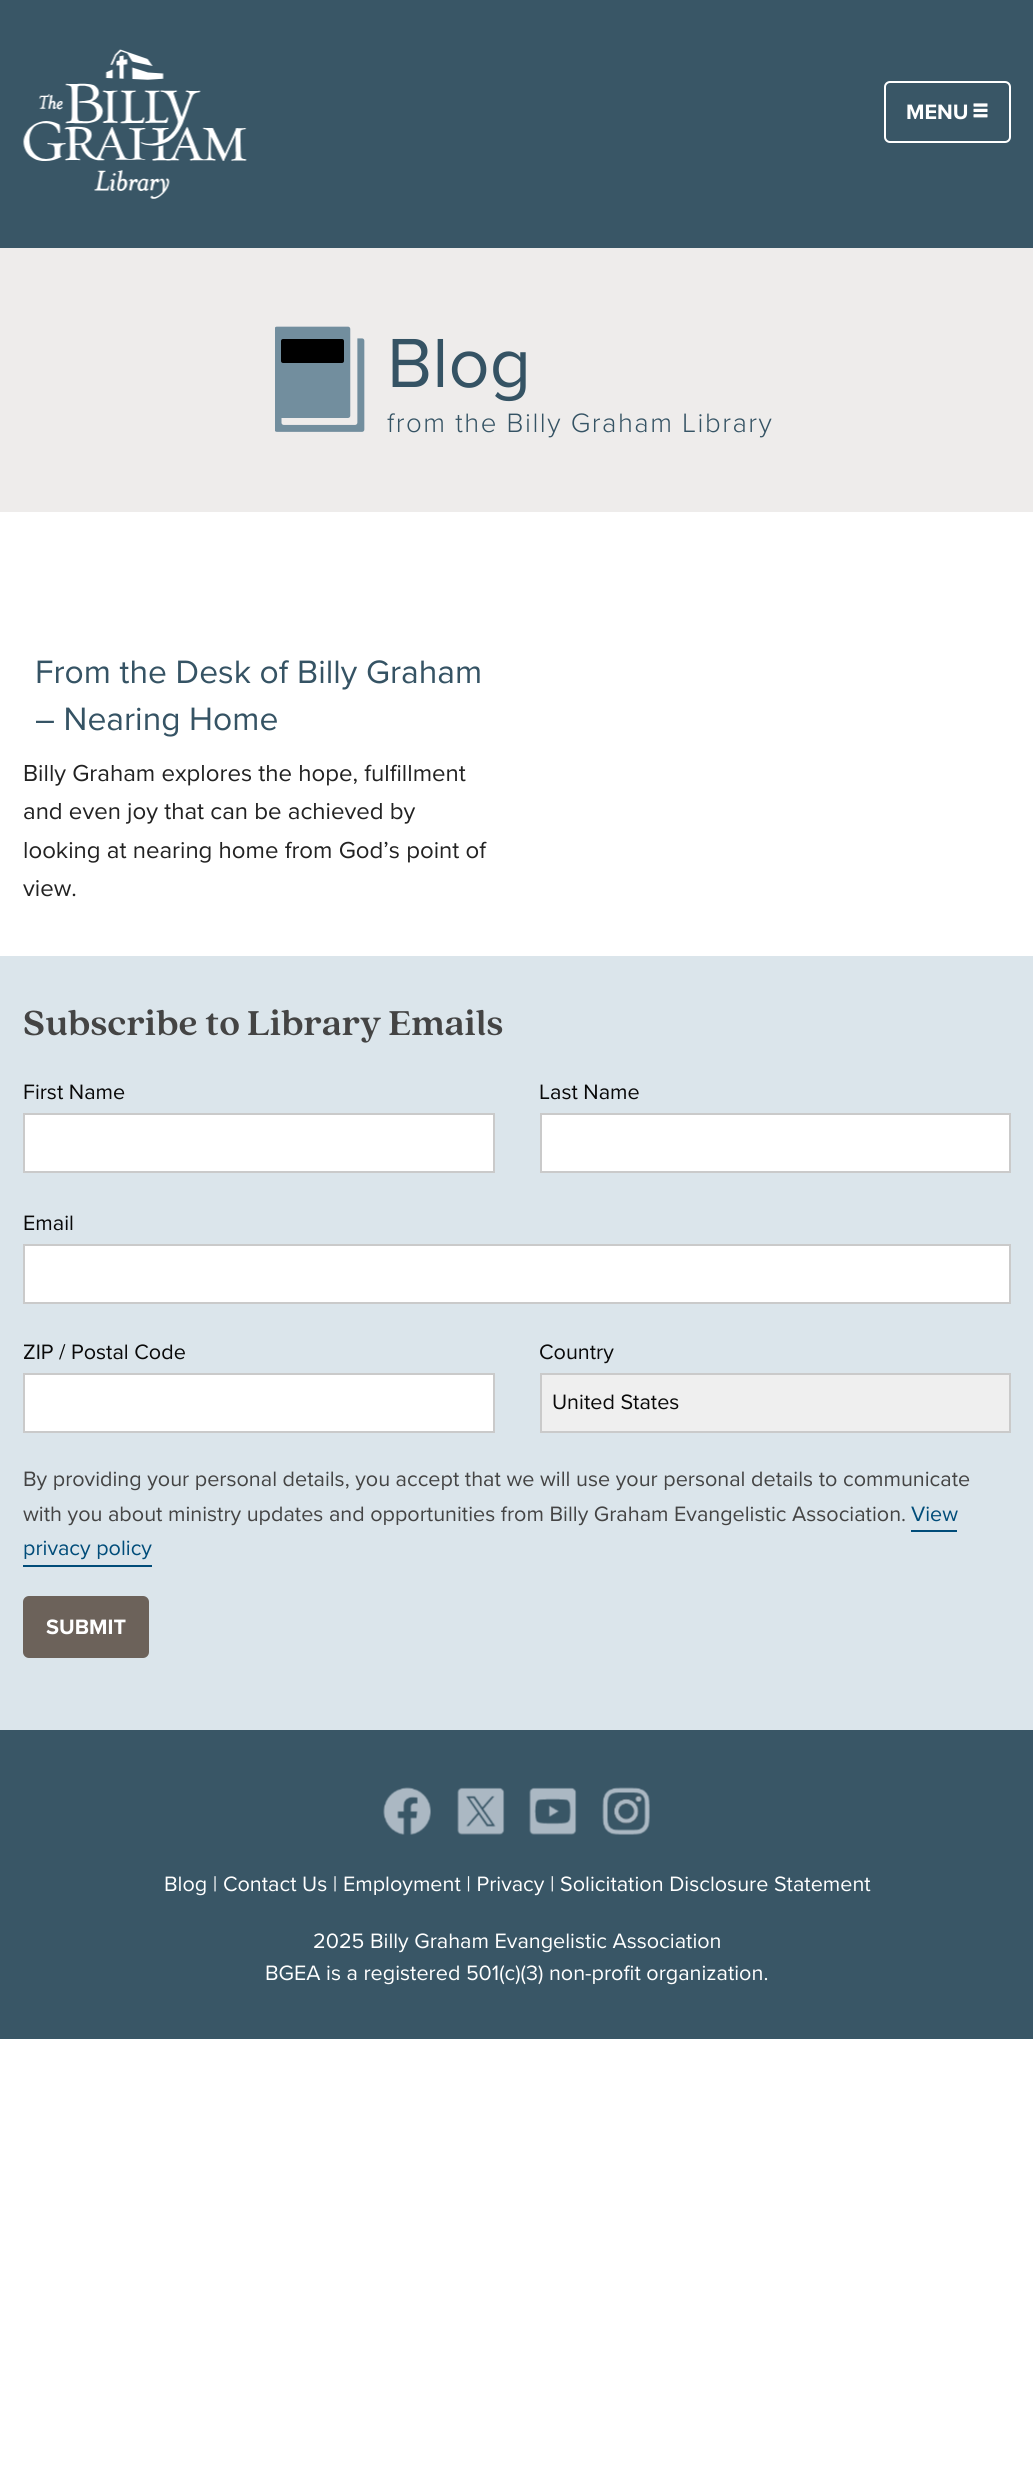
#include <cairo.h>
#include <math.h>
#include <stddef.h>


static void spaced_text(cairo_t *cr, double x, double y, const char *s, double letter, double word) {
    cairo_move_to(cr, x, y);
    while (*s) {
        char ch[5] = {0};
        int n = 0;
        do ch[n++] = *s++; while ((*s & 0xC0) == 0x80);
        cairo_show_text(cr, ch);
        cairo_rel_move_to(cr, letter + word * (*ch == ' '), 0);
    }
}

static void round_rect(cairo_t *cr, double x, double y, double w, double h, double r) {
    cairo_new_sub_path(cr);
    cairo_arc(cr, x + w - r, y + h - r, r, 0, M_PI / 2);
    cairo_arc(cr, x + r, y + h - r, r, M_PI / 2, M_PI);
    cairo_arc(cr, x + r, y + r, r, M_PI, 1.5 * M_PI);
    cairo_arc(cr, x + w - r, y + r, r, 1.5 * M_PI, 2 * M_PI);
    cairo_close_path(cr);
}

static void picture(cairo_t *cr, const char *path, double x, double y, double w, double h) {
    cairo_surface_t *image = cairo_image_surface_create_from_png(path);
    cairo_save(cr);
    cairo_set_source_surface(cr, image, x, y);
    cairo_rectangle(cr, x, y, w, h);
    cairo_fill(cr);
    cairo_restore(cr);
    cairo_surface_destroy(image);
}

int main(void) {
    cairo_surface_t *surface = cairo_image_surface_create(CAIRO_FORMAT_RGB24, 1033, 2479);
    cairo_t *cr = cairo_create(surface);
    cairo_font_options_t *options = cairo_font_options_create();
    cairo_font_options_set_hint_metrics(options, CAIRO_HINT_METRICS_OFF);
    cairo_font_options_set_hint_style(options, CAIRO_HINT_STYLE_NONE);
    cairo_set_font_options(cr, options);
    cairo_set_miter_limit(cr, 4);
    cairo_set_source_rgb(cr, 1, 1, 1);
    cairo_paint(cr);
    cairo_set_source_rgb(cr, 0.224, 0.337, 0.4);
    cairo_rectangle(cr, 0, 0, 1033, 248);
    cairo_fill(cr);
    picture(cr, "img1.png", 23, 49, 224, 150);
    round_rect(cr, 885, 82, 125, 60, 5);
    cairo_set_source_rgb(cr, 1, 1, 1);
    cairo_stroke(cr);
    cairo_select_font_face(cr, "Proxima Nova", CAIRO_FONT_SLANT_NORMAL, CAIRO_FONT_WEIGHT_BOLD);
    cairo_set_font_size(cr, 21.6);
    cairo_move_to(cr, 906, 119);
    cairo_show_text(cr, "MENU");
    picture(cr, "img2.png", 973, 103, 15, 15);
    cairo_set_source_rgb(cr, 0.933, 0.925, 0.918);
    cairo_rectangle(cr, 0, 248, 1033, 264);
    cairo_fill(cr);
    picture(cr, "img3.png", 275, 326, 90, 106);
    cairo_select_font_face(cr, "Proxima Nova", CAIRO_FONT_SLANT_NORMAL, CAIRO_FONT_WEIGHT_NORMAL);
    cairo_set_font_size(cr, 72);
    cairo_set_source_rgb(cr, 0.208, 0.325, 0.392);
    cairo_move_to(cr, 387, 387);
    cairo_show_text(cr, "Blog");
    cairo_select_font_face(cr, "Proxima Nova Light", CAIRO_FONT_SLANT_NORMAL, CAIRO_FONT_WEIGHT_NORMAL);
    cairo_set_font_size(cr, 27.6);
    spaced_text(cr, 387, 432, "from the Billy Graham Library", 1.5, 0);
    cairo_select_font_face(cr, "Proxima Nova", CAIRO_FONT_SLANT_NORMAL, CAIRO_FONT_WEIGHT_NORMAL);
    cairo_set_font_size(cr, 33.6);
    cairo_move_to(cr, 35, 683);
    cairo_show_text(cr, "From the Desk of Billy Graham");
    cairo_move_to(cr, 35, 730);
    cairo_show_text(cr, "– Nearing Home");
    cairo_set_font_size(cr, 24);
    cairo_set_source_rgb(cr, 0.133, 0.133, 0.133);
    cairo_move_to(cr, 23, 781);
    cairo_show_text(cr, "Billy Graham explores the hope, fulfillment");
    cairo_move_to(cr, 23, 819);
    cairo_show_text(cr, "and even joy that can be achieved by");
    cairo_move_to(cr, 23, 858);
    cairo_show_text(cr, "looking at nearing home from God’s point of");
    cairo_move_to(cr, 23, 896);
    cairo_show_text(cr, "view.");
    cairo_set_source_rgb(cr, 0.859, 0.898, 0.918);
    cairo_rectangle(cr, 0, 956, 1033, 774);
    cairo_fill(cr);
    cairo_select_font_face(cr, "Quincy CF", CAIRO_FONT_SLANT_NORMAL, CAIRO_FONT_WEIGHT_BOLD);
    cairo_set_font_size(cr, 38.4);
    cairo_set_source_rgb(cr, 0.267, 0.267, 0.267);
    cairo_move_to(cr, 23, 1035);
    cairo_show_text(cr, "Subscribe to Library Emails");
    cairo_select_font_face(cr, "Proxima Nova", CAIRO_FONT_SLANT_NORMAL, CAIRO_FONT_WEIGHT_NORMAL);
    cairo_set_font_size(cr, 21.6);
    cairo_set_source_rgb(cr, 0.039, 0.039, 0.039);
    cairo_move_to(cr, 23, 1099);
    cairo_show_text(cr, "First Name");
    cairo_set_source_rgb(cr, 1, 1, 1);
    cairo_rectangle(cr, 24, 1114, 470, 58);
    cairo_fill_preserve(cr);
    cairo_set_source_rgb(cr, 0.792, 0.792, 0.792);
    cairo_stroke(cr);
    cairo_set_source_rgb(cr, 0.039, 0.039, 0.039);
    cairo_move_to(cr, 539, 1099);
    cairo_show_text(cr, "Last Name");
    cairo_set_source_rgb(cr, 1, 1, 1);
    cairo_rectangle(cr, 541, 1114, 469, 58);
    cairo_fill_preserve(cr);
    cairo_set_source_rgb(cr, 0.792, 0.792, 0.792);
    cairo_stroke(cr);
    cairo_set_source_rgb(cr, 0.039, 0.039, 0.039);
    cairo_move_to(cr, 23, 1230);
    cairo_show_text(cr, "Email");
    cairo_set_source_rgb(cr, 1, 1, 1);
    cairo_rectangle(cr, 24, 1245, 986, 58);
    cairo_fill_preserve(cr);
    cairo_set_source_rgb(cr, 0.792, 0.792, 0.792);
    cairo_stroke(cr);
    cairo_set_source_rgb(cr, 0.039, 0.039, 0.039);
    cairo_move_to(cr, 23, 1359);
    cairo_show_text(cr, "ZIP / Postal Code");
    cairo_set_source_rgb(cr, 1, 1, 1);
    cairo_rectangle(cr, 24, 1374, 470, 58);
    cairo_fill_preserve(cr);
    cairo_set_source_rgb(cr, 0.792, 0.792, 0.792);
    cairo_stroke(cr);
    cairo_set_source_rgb(cr, 0.039, 0.039, 0.039);
    cairo_move_to(cr, 539, 1359);
    cairo_show_text(cr, "Country");
    cairo_set_source_rgb(cr, 0.937, 0.937, 0.937);
    cairo_rectangle(cr, 541, 1374, 469, 58);
    cairo_fill_preserve(cr);
    cairo_set_source_rgb(cr, 0.792, 0.792, 0.792);
    cairo_stroke(cr);
    cairo_set_source_rgb(cr, 0.039, 0.039, 0.039);
    cairo_move_to(cr, 552, 1409);
    cairo_show_text(cr, "United States");
    cairo_set_source_rgb(cr, 0.267, 0.267, 0.267);
    cairo_move_to(cr, 23, 1486);
    cairo_show_text(cr, "By providing your personal details, you accept that we will use your personal details to communicate");
    cairo_move_to(cr, 23, 1521);
    cairo_show_text(cr, "with you about ministry updates and opportunities from Billy Graham Evangelistic Association.");
    cairo_set_source_rgb(cr, 0, 0.298, 0.475);
    cairo_move_to(cr, 911, 1521);
    cairo_show_text(cr, "View");
    cairo_rectangle(cr, 911, 1530, 46, 2);
    cairo_fill(cr);
    cairo_move_to(cr, 23, 1555);
    cairo_show_text(cr, "privacy policy");
    cairo_rectangle(cr, 23, 1565, 129, 2);
    cairo_fill(cr);
    cairo_set_source_rgb(cr, 0.424, 0.384, 0.353);
    round_rect(cr, 23, 1596, 126, 62, 6);
    cairo_fill(cr);
    cairo_select_font_face(cr, "Proxima Nova", CAIRO_FONT_SLANT_NORMAL, CAIRO_FONT_WEIGHT_BOLD);
    cairo_set_source_rgb(cr, 1, 1, 1);
    cairo_move_to(cr, 46, 1634);
    cairo_show_text(cr, "SUBMIT");
    cairo_set_source_rgb(cr, 0.224, 0.337, 0.4);
    cairo_rectangle(cr, 0, 1730, 1033, 309);
    cairo_fill(cr);
    picture(cr, "img4.png", 383, 1787, 48, 48);
    picture(cr, "img5.png", 457, 1787, 48, 48);
    picture(cr, "img6.png", 529, 1787, 48, 48);
    picture(cr, "img7.png", 602, 1787, 48, 48);
    cairo_select_font_face(cr, "Proxima Nova", CAIRO_FONT_SLANT_NORMAL, CAIRO_FONT_WEIGHT_NORMAL);
    cairo_set_source_rgb(cr, 1, 1, 1);
    cairo_move_to(cr, 164, 1891);
    cairo_show_text(cr, "Blog | Contact Us | Employment | Privacy | Solicitation Disclosure Statement");
    cairo_move_to(cr, 313, 1948);
    cairo_show_text(cr, "2025 Billy Graham Evangelistic Association");
    cairo_move_to(cr, 265, 1980);
    cairo_show_text(cr, "BGEA is a registered 501(c)(3) non-profit organization.");
    cairo_surface_write_to_png(surface, "page.png");
    cairo_font_options_destroy(options);
    cairo_destroy(cr);
    cairo_surface_destroy(surface);
    return 0;
}
